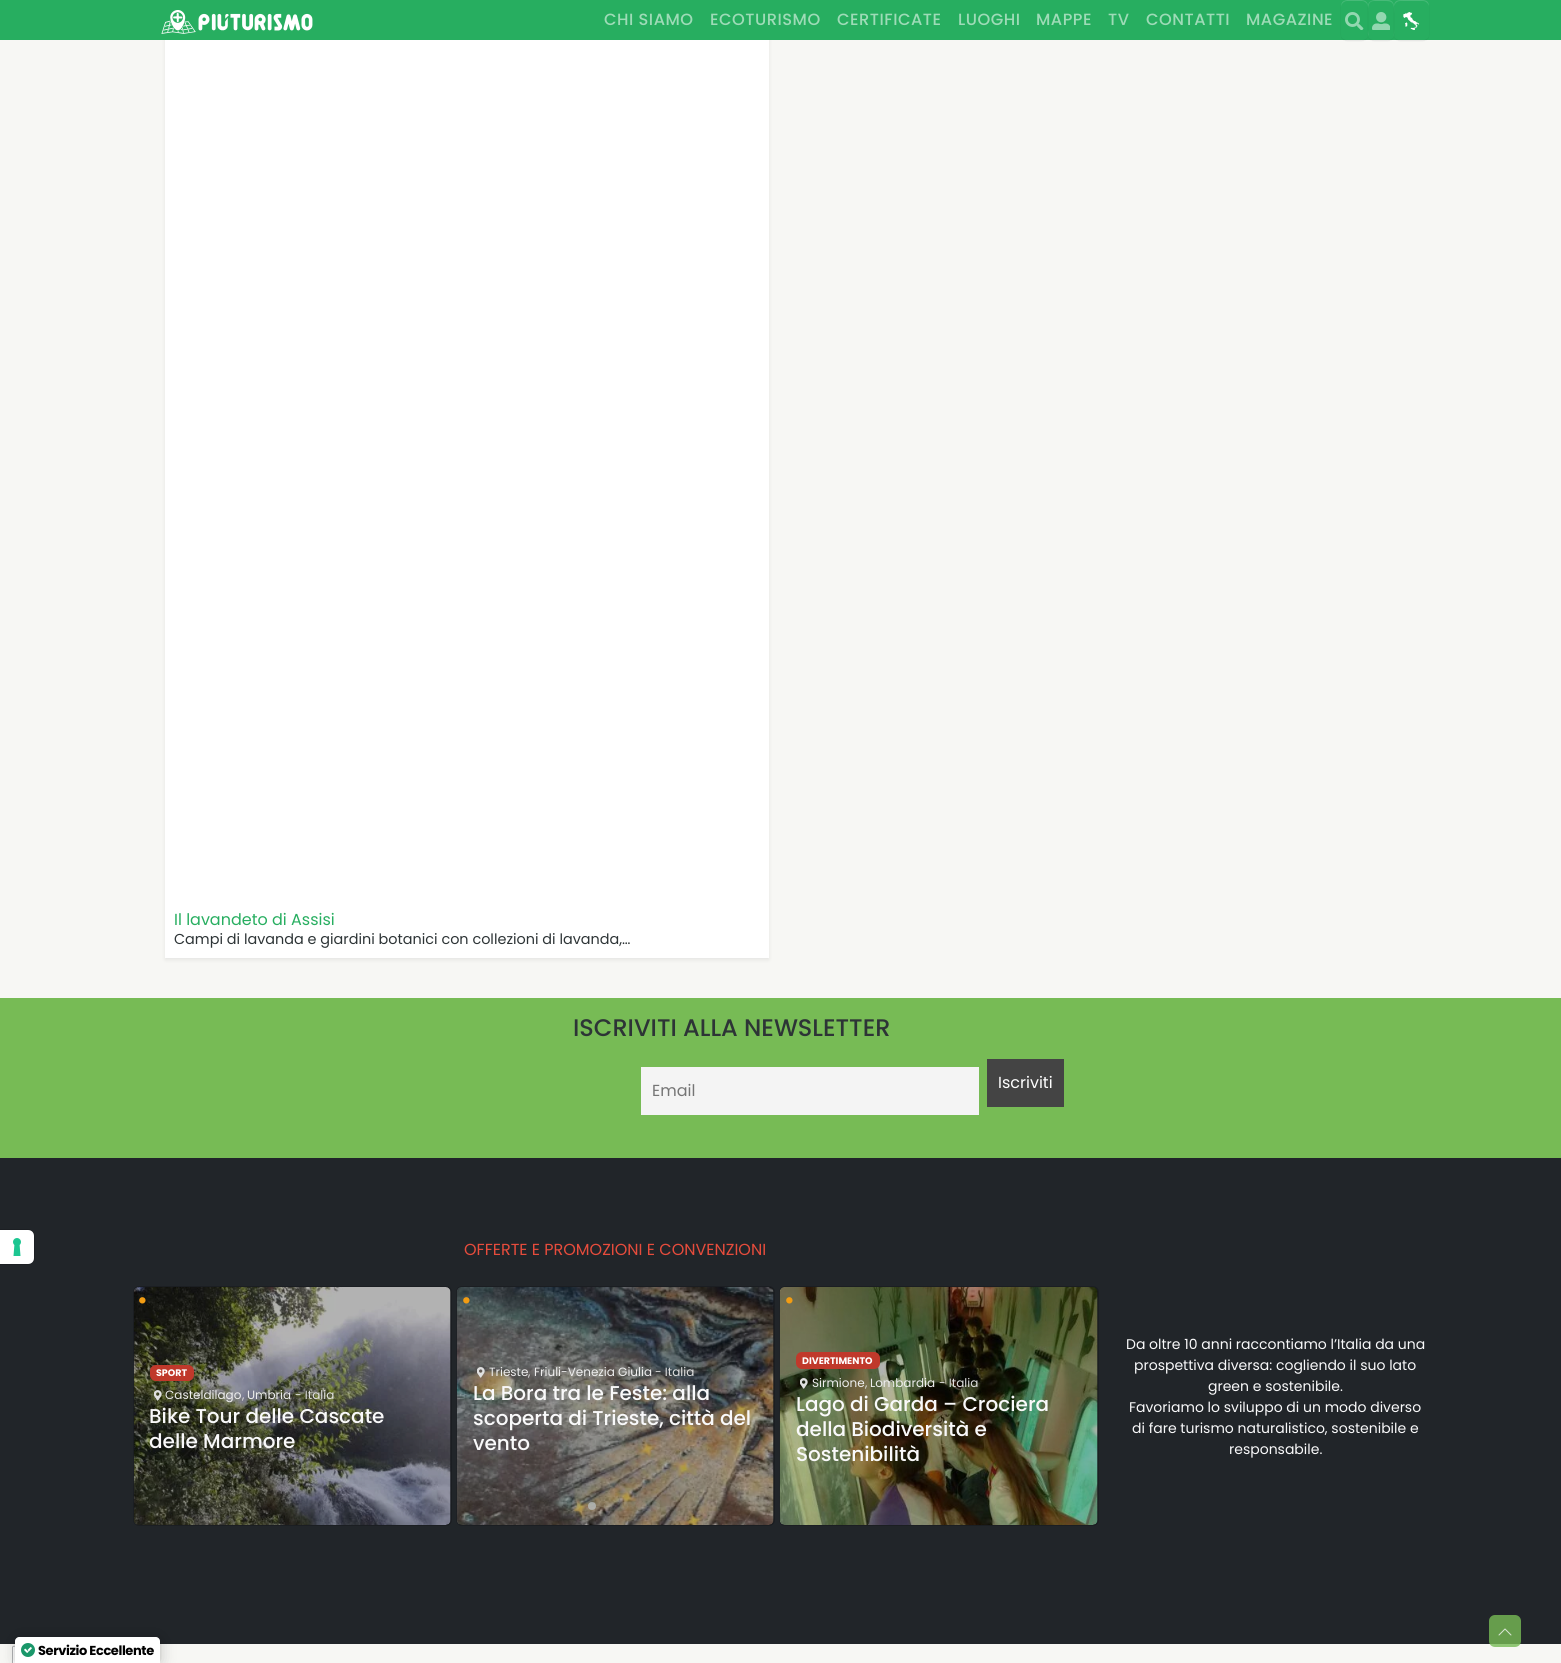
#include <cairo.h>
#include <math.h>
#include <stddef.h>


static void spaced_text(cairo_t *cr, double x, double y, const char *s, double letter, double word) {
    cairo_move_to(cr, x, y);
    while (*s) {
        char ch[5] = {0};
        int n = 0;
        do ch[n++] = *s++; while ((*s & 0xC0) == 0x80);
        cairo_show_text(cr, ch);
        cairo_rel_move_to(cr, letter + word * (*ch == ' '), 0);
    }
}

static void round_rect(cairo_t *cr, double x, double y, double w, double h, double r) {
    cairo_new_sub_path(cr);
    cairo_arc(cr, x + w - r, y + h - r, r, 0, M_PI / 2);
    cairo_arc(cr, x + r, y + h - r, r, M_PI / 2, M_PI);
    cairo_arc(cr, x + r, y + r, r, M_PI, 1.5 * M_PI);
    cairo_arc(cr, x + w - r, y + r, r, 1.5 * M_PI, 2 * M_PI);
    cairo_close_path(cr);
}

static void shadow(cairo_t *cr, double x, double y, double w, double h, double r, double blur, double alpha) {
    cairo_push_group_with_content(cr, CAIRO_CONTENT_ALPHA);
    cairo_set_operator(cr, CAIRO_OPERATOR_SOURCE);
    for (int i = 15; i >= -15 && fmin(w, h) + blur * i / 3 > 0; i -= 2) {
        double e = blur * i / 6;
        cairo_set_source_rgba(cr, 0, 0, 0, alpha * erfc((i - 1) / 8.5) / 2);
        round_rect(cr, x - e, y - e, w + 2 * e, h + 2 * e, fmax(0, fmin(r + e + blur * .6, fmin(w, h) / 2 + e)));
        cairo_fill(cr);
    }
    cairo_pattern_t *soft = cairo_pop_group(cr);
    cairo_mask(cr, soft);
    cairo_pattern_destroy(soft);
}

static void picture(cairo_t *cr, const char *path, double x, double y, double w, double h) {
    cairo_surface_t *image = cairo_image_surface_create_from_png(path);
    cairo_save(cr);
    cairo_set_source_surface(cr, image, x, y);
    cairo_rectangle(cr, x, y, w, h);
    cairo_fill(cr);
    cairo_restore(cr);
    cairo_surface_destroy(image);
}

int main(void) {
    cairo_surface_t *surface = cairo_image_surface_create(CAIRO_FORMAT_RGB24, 1561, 1663);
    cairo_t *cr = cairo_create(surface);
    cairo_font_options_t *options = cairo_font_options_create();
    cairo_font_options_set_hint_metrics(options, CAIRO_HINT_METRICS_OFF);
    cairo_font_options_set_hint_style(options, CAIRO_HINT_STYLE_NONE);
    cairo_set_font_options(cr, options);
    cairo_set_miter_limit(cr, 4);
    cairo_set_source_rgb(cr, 0.965, 0.965, 0.957);
    cairo_paint(cr);
    cairo_set_source_rgb(cr, 0, 0, 0);
    shadow(cr, 165, -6, 604, 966, 0, 2, 0.07);
    cairo_set_source_rgb(cr, 0.153, 0.682, 0.376);
    cairo_rectangle(cr, 0, 0, 1561, 40);
    cairo_fill(cr);
    picture(cr, "img1.png", 161, 10, 152, 24);
    cairo_select_font_face(cr, "Poppins Medium", CAIRO_FONT_SLANT_NORMAL, CAIRO_FONT_WEIGHT_NORMAL);
    cairo_set_font_size(cr, 16.25);
    cairo_set_source_rgb(cr, 0.62, 0.859, 0.718);
    spaced_text(cr, 604, 25, "CHI SIAMO", 0.5, 0);
    spaced_text(cr, 710, 25, "ECOTURISMO", 0.5, 0);
    spaced_text(cr, 837, 25, "CERTIFICATE", 0.5, 0);
    spaced_text(cr, 958, 25, "LUOGHI", 0.5, 0);
    spaced_text(cr, 1036, 25, "MAPPE", 0.5, 0);
    spaced_text(cr, 1108, 25, "TV", 0.5, 0);
    spaced_text(cr, 1146, 25, "CONTATTI", 0.5, 0);
    spaced_text(cr, 1246, 25, "MAGAZINE", 0.5, 0);
    cairo_save(cr);
    cairo_set_fill_rule(cr, CAIRO_FILL_RULE_EVEN_ODD);
    cairo_new_path(cr);
    cairo_move_to(cr, 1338, 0);
    cairo_line_to(cr, 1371, 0);
    cairo_line_to(cr, 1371, 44);
    cairo_line_to(cr, 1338, 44);
    cairo_close_path(cr);
    cairo_move_to(cr, 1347, 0);
    cairo_line_to(cr, 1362, 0);
    cairo_curve_to(cr, 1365.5, 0, 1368, 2.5, 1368, 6);
    cairo_line_to(cr, 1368, 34);
    cairo_curve_to(cr, 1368, 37.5, 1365.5, 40, 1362, 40);
    cairo_line_to(cr, 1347, 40);
    cairo_curve_to(cr, 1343.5, 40, 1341, 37.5, 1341, 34);
    cairo_line_to(cr, 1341, 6);
    cairo_curve_to(cr, 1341, 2.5, 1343.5, 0, 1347, 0);
    cairo_close_path(cr);
    cairo_clip(cr);
    cairo_set_source_rgb(cr, 0, 0, 0);
    shadow(cr, 1341, 1, 27, 40, 6, 0.5, 0.07);
    cairo_restore(cr);
    cairo_set_source_rgb(cr, 0.278, 0.729, 0.471);
    cairo_new_path(cr);
    cairo_move_to(cr, 1347, 1);
    cairo_line_to(cr, 1362, 1);
    cairo_curve_to(cr, 1365, 1, 1368, 4, 1368, 7);
    cairo_curve_to(cr, 1368, -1.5, 1360.5, 0, 1354.5, 0);
    cairo_curve_to(cr, 1348.5, 0, 1341, -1.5, 1341, 7);
    cairo_curve_to(cr, 1341, 4, 1344, 1, 1347, 1);
    cairo_close_path(cr);
    cairo_fill(cr);
    picture(cr, "img2.png", 1345, 12, 19, 18);
    cairo_save(cr);
    cairo_set_fill_rule(cr, CAIRO_FILL_RULE_EVEN_ODD);
    cairo_new_path(cr);
    cairo_move_to(cr, 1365, 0);
    cairo_line_to(cr, 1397, 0);
    cairo_line_to(cr, 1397, 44);
    cairo_line_to(cr, 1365, 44);
    cairo_close_path(cr);
    cairo_move_to(cr, 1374, 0);
    cairo_line_to(cr, 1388, 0);
    cairo_curve_to(cr, 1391.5, 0, 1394, 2.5, 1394, 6);
    cairo_line_to(cr, 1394, 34);
    cairo_curve_to(cr, 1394, 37.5, 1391.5, 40, 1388, 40);
    cairo_line_to(cr, 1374, 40);
    cairo_curve_to(cr, 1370.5, 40, 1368, 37.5, 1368, 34);
    cairo_line_to(cr, 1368, 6);
    cairo_curve_to(cr, 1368, 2.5, 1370.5, 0, 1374, 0);
    cairo_close_path(cr);
    cairo_clip(cr);
    cairo_set_source_rgb(cr, 0, 0, 0);
    shadow(cr, 1368, 1, 26, 40, 6, 0.5, 0.07);
    cairo_restore(cr);
    cairo_set_fill_rule(cr, CAIRO_FILL_RULE_EVEN_ODD);
    cairo_new_path(cr);
    cairo_move_to(cr, 1374, 1);
    cairo_line_to(cr, 1386, 1);
    cairo_curve_to(cr, 1394.5, 1, 1394, 6, 1394, 13.5);
    cairo_curve_to(cr, 1394, 8.5, 1395.5, 1.5, 1389, 0);
    cairo_line_to(cr, 1381, 0);
    cairo_curve_to(cr, 1376.5, 0, 1369.5, -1, 1368, 5);
    cairo_line_to(cr, 1368, 12);
    cairo_curve_to(cr, 1368, 7, 1368, 1, 1374, 1);
    cairo_close_path(cr);
    cairo_move_to(cr, 1394, 28.5);
    cairo_curve_to(cr, 1394, 32, 1394, 35, 1393.5, 36.5);
    cairo_curve_to(cr, 1394.5, 34.5, 1394, 31, 1394, 28.5);
    cairo_close_path(cr);
    cairo_move_to(cr, 1368.5, 36);
    cairo_line_to(cr, 1368, 30);
    cairo_curve_to(cr, 1368, 32, 1367.5, 34.5, 1368.5, 36);
    cairo_close_path(cr);
    cairo_fill(cr);
    picture(cr, "img3.png", 1372, 12, 18, 18);
    cairo_save(cr);
    cairo_new_path(cr);
    cairo_move_to(cr, 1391, 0);
    cairo_line_to(cr, 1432, 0);
    cairo_line_to(cr, 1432, 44);
    cairo_line_to(cr, 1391, 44);
    cairo_close_path(cr);
    cairo_move_to(cr, 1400, 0);
    cairo_line_to(cr, 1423, 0);
    cairo_curve_to(cr, 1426.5, 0, 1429, 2.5, 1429, 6);
    cairo_line_to(cr, 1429, 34);
    cairo_curve_to(cr, 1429, 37.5, 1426.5, 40, 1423, 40);
    cairo_line_to(cr, 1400, 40);
    cairo_curve_to(cr, 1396.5, 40, 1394, 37.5, 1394, 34);
    cairo_line_to(cr, 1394, 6);
    cairo_curve_to(cr, 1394, 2.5, 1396.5, 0, 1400, 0);
    cairo_close_path(cr);
    cairo_clip(cr);
    cairo_set_source_rgb(cr, 0, 0, 0);
    shadow(cr, 1394, 1, 35, 40, 6, 0.5, 0.07);
    cairo_restore(cr);
    cairo_set_fill_rule(cr, CAIRO_FILL_RULE_WINDING);
    cairo_new_path(cr);
    cairo_move_to(cr, 1400, 1);
    cairo_line_to(cr, 1423, 1);
    cairo_curve_to(cr, 1426, 1, 1429, 4, 1429, 7);
    cairo_curve_to(cr, 1429, 0, 1425, 0, 1419, 0);
    cairo_line_to(cr, 1404, 0);
    cairo_curve_to(cr, 1398, 0, 1394, 0, 1394, 7);
    cairo_curve_to(cr, 1394, 4, 1397, 1, 1400, 1);
    cairo_close_path(cr);
    cairo_fill(cr);
    picture(cr, "img4.png", 1403, 12, 17, 18);
    cairo_set_source_rgb(cr, 1, 1, 1);
    cairo_rectangle(cr, 165, 40, 604, 918);
    cairo_fill(cr);
    cairo_select_font_face(cr, "Poppins", CAIRO_FONT_SLANT_NORMAL, CAIRO_FONT_WEIGHT_NORMAL);
    cairo_set_font_size(cr, 16);
    cairo_set_source_rgb(cr, 0.153, 0.682, 0.376);
    cairo_move_to(cr, 174, 925);
    cairo_show_text(cr, "Il lavandeto di Assisi");
    cairo_set_font_size(cr, 14.4);
    cairo_set_source_rgb(cr, 0.176, 0.204, 0.212);
    cairo_move_to(cr, 174, 944);
    cairo_show_text(cr, "Campi di lavanda e giardini botanici con collezioni di lavanda,…");
    cairo_set_source_rgb(cr, 0.129, 0.145, 0.161);
    cairo_rectangle(cr, 0, 1158, 1561, 486);
    cairo_fill(cr);
    cairo_new_path(cr);
    cairo_move_to(cr, -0.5, 1229.5);
    cairo_line_to(cr, 28, 1229.5);
    cairo_curve_to(cr, 31.5, 1229.5, 34.5, 1232.5, 34.5, 1236);
    cairo_line_to(cr, 34.5, 1258);
    cairo_curve_to(cr, 34.5, 1261.5, 31.5, 1264.5, 28, 1264.5);
    cairo_line_to(cr, -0.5, 1264.5);
    cairo_close_path(cr);
    cairo_set_source_rgb(cr, 0.11, 0.122, 0.137);
    cairo_set_line_width(cr, 1);
    cairo_stroke(cr);
    cairo_set_source_rgb(cr, 1, 1, 1);
    cairo_new_path(cr);
    cairo_move_to(cr, 0, 1230);
    cairo_line_to(cr, 28, 1230);
    cairo_curve_to(cr, 31.5, 1230, 34, 1232.5, 34, 1236);
    cairo_line_to(cr, 34, 1258);
    cairo_curve_to(cr, 34, 1261.5, 31.5, 1264, 28, 1264);
    cairo_line_to(cr, 0, 1264);
    cairo_close_path(cr);
    cairo_fill(cr);
    picture(cr, "img5.png", 13, 1238, 8, 18);
    cairo_set_source_rgb(cr, 0.467, 0.733, 0.333);
    cairo_rectangle(cr, 0, 998, 1561, 160);
    cairo_fill(cr);
    cairo_select_font_face(cr, "Poppins Medium", CAIRO_FONT_SLANT_NORMAL, CAIRO_FONT_WEIGHT_NORMAL);
    cairo_set_font_size(cr, 24);
    cairo_set_source_rgb(cr, 0.176, 0.204, 0.212);
    cairo_move_to(cr, 573, 1036);
    cairo_show_text(cr, "ISCRIVITI ALLA NEWSLETTER");
    cairo_set_source_rgb(cr, 0.957, 0.957, 0.957);
    cairo_rectangle(cr, 641, 1067, 338, 48);
    cairo_fill(cr);
    cairo_select_font_face(cr, "Poppins", CAIRO_FONT_SLANT_NORMAL, CAIRO_FONT_WEIGHT_NORMAL);
    cairo_set_font_size(cr, 16);
    cairo_set_source_rgb(cr, 0.459, 0.459, 0.459);
    cairo_move_to(cr, 652, 1096);
    cairo_show_text(cr, "Email");
    cairo_set_source_rgb(cr, 0.267, 0.267, 0.267);
    cairo_rectangle(cr, 987, 1059, 77, 48);
    cairo_fill(cr);
    cairo_set_source_rgb(cr, 1, 1, 1);
    cairo_move_to(cr, 998, 1088);
    cairo_show_text(cr, "Iscriviti");
    cairo_set_source_rgb(cr, 0.906, 0.298, 0.235);
    cairo_move_to(cr, 464, 1255);
    cairo_show_text(cr, "OFFERTE E PROMOZIONI E CONVENZIONI");
    round_rect(cr, 133.5, 1286.5, 318, 239, 5.5);
    cairo_set_source_rgb(cr, 0.106, 0.118, 0.133);
    cairo_stroke(cr);
    picture(cr, "img6.png", 133, 1287, 318, 238);
    cairo_set_source_rgba(cr, 0, 0, 0, 0.3);
    round_rect(cr, 134, 1287, 317, 238, 5);
    cairo_fill(cr);
    cairo_set_font_size(cr, 26);
    cairo_set_source_rgb(cr, 0.953, 0.612, 0.071);
    cairo_move_to(cr, 137, 1309);
    cairo_show_text(cr, "•");
    cairo_set_source_rgb(cr, 0.753, 0.224, 0.169);
    round_rect(cr, 150, 1365, 44, 16, 6);
    cairo_fill(cr);
    cairo_select_font_face(cr, "Poppins", CAIRO_FONT_SLANT_NORMAL, CAIRO_FONT_WEIGHT_BOLD);
    cairo_set_font_size(cr, 9.5);
    cairo_set_source_rgb(cr, 1, 1, 1);
    cairo_move_to(cr, 156, 1376);
    cairo_show_text(cr, "SPORT");
    picture(cr, "img7.png", 154, 1390, 8, 11);
    cairo_select_font_face(cr, "Poppins", CAIRO_FONT_SLANT_NORMAL, CAIRO_FONT_WEIGHT_NORMAL);
    cairo_set_font_size(cr, 12);
    cairo_set_source_rgb(cr, 0.933, 0.933, 0.933);
    cairo_move_to(cr, 165, 1399);
    cairo_show_text(cr, "Casteldilago");
    cairo_set_source_rgb(cr, 0.878, 0.878, 0.878);
    cairo_move_to(cr, 242, 1399);
    cairo_show_text(cr, ",");
    cairo_set_source_rgb(cr, 0.933, 0.933, 0.933);
    cairo_move_to(cr, 247, 1399);
    cairo_show_text(cr, "Umbria");
    cairo_set_source_rgb(cr, 0.878, 0.878, 0.878);
    cairo_move_to(cr, 295, 1399);
    cairo_show_text(cr, "- Italia");
    cairo_select_font_face(cr, "Poppins Medium", CAIRO_FONT_SLANT_NORMAL, CAIRO_FONT_WEIGHT_NORMAL);
    cairo_set_font_size(cr, 20);
    cairo_set_source_rgb(cr, 0.973, 0.976, 0.98);
    cairo_move_to(cr, 149, 1423);
    cairo_show_text(cr, "Bike Tour delle Cascate");
    cairo_move_to(cr, 149, 1448);
    cairo_show_text(cr, "delle Marmore");
    round_rect(cr, 456.5, 1286.5, 318, 239, 5.5);
    cairo_set_source_rgb(cr, 0.106, 0.118, 0.133);
    cairo_stroke(cr);
    picture(cr, "img8.png", 456, 1287, 318, 238);
    cairo_set_source_rgba(cr, 0, 0, 0, 0.3);
    round_rect(cr, 457, 1287, 317, 238, 5);
    cairo_fill(cr);
    cairo_select_font_face(cr, "Poppins", CAIRO_FONT_SLANT_NORMAL, CAIRO_FONT_WEIGHT_NORMAL);
    cairo_set_font_size(cr, 26);
    cairo_set_source_rgb(cr, 0.953, 0.612, 0.071);
    cairo_move_to(cr, 461, 1309);
    cairo_show_text(cr, "•");
    picture(cr, "img9.png", 477, 1367, 8, 11);
    cairo_set_font_size(cr, 12);
    cairo_set_source_rgb(cr, 0.933, 0.933, 0.933);
    cairo_move_to(cr, 489, 1376);
    cairo_show_text(cr, "Trieste");
    cairo_set_source_rgb(cr, 0.878, 0.878, 0.878);
    cairo_move_to(cr, 528, 1376);
    cairo_show_text(cr, ",");
    cairo_set_source_rgb(cr, 0.933, 0.933, 0.933);
    cairo_move_to(cr, 534, 1376);
    cairo_show_text(cr, "Friuli-Venezia Giulia");
    cairo_set_source_rgb(cr, 0.878, 0.878, 0.878);
    cairo_move_to(cr, 655, 1376);
    cairo_show_text(cr, "- Italia");
    cairo_select_font_face(cr, "Poppins Medium", CAIRO_FONT_SLANT_NORMAL, CAIRO_FONT_WEIGHT_NORMAL);
    cairo_set_font_size(cr, 20);
    cairo_set_source_rgb(cr, 0.973, 0.976, 0.98);
    cairo_move_to(cr, 473, 1400);
    cairo_show_text(cr, "La Bora tra le Feste: alla");
    cairo_move_to(cr, 473, 1425);
    cairo_show_text(cr, "scoperta di Trieste, città del");
    cairo_move_to(cr, 473, 1450);
    cairo_show_text(cr, "vento");
    round_rect(cr, 779.5, 1286.5, 319, 239, 5.5);
    cairo_set_source_rgb(cr, 0.106, 0.118, 0.133);
    cairo_stroke(cr);
    picture(cr, "img10.png", 779, 1287, 319, 238);
    cairo_set_source_rgba(cr, 0, 0, 0, 0.3);
    round_rect(cr, 780, 1287, 318, 238, 5);
    cairo_fill(cr);
    cairo_select_font_face(cr, "Poppins", CAIRO_FONT_SLANT_NORMAL, CAIRO_FONT_WEIGHT_NORMAL);
    cairo_set_font_size(cr, 26);
    cairo_set_source_rgb(cr, 0.953, 0.612, 0.071);
    cairo_move_to(cr, 784, 1309);
    cairo_show_text(cr, "•");
    cairo_set_source_rgb(cr, 0.753, 0.224, 0.169);
    round_rect(cr, 796, 1352, 84, 17, 6);
    cairo_fill(cr);
    cairo_select_font_face(cr, "Poppins", CAIRO_FONT_SLANT_NORMAL, CAIRO_FONT_WEIGHT_BOLD);
    cairo_set_font_size(cr, 9.5);
    cairo_set_source_rgb(cr, 1, 1, 1);
    cairo_move_to(cr, 802, 1364);
    cairo_show_text(cr, "DIVERTIMENTO");
    picture(cr, "img11.png", 800, 1378, 8, 11);
    cairo_select_font_face(cr, "Poppins", CAIRO_FONT_SLANT_NORMAL, CAIRO_FONT_WEIGHT_NORMAL);
    cairo_set_font_size(cr, 12);
    cairo_set_source_rgb(cr, 0.933, 0.933, 0.933);
    cairo_move_to(cr, 812, 1387);
    cairo_show_text(cr, "Sirmione");
    cairo_set_source_rgb(cr, 0.878, 0.878, 0.878);
    cairo_move_to(cr, 865, 1387);
    cairo_show_text(cr, ",");
    cairo_set_source_rgb(cr, 0.933, 0.933, 0.933);
    cairo_move_to(cr, 870, 1387);
    cairo_show_text(cr, "Lombardia");
    cairo_set_source_rgb(cr, 0.878, 0.878, 0.878);
    cairo_move_to(cr, 939, 1387);
    cairo_show_text(cr, "- Italia");
    cairo_select_font_face(cr, "Poppins Medium", CAIRO_FONT_SLANT_NORMAL, CAIRO_FONT_WEIGHT_NORMAL);
    cairo_set_font_size(cr, 20);
    cairo_set_source_rgb(cr, 0.973, 0.976, 0.98);
    cairo_move_to(cr, 796, 1411);
    cairo_show_text(cr, "Lago di Garda – Crociera");
    cairo_move_to(cr, 796, 1436);
    cairo_show_text(cr, "della Biodiversità e");
    cairo_move_to(cr, 796, 1461);
    cairo_show_text(cr, "Sostenibilità");
    cairo_set_source_rgba(cr, 0.741, 0.765, 0.78, 0.13);
    cairo_new_path(cr);
    cairo_arc(cr, 576, 1506, 4, 0, 2 * M_PI);
    cairo_fill(cr);
    cairo_set_source_rgba(cr, 0.741, 0.765, 0.78, 0.7);
    cairo_arc(cr, 592, 1506, 4, 0, 2 * M_PI);
    cairo_fill(cr);
    cairo_set_source_rgba(cr, 0.741, 0.765, 0.78, 0.13);
    cairo_arc(cr, 608, 1506, 4, 0, 2 * M_PI);
    cairo_fill(cr);
    cairo_arc(cr, 624, 1506, 4, 0, 2 * M_PI);
    cairo_fill(cr);
    cairo_arc(cr, 640, 1506, 4, 0, 2 * M_PI);
    cairo_fill(cr);
    cairo_arc(cr, 656, 1506, 4, 0, 2 * M_PI);
    cairo_fill(cr);
    cairo_select_font_face(cr, "Poppins", CAIRO_FONT_SLANT_NORMAL, CAIRO_FONT_WEIGHT_NORMAL);
    cairo_set_font_size(cr, 14);
    cairo_set_source_rgb(cr, 0.973, 0.976, 0.98);
    cairo_move_to(cr, 1126, 1349);
    cairo_show_text(cr, "Da oltre 10 anni raccontiamo l’Italia da una");
    cairo_move_to(cr, 1134, 1370);
    cairo_show_text(cr, "prospettiva diversa: cogliendo il suo lato");
    cairo_move_to(cr, 1208, 1391);
    cairo_show_text(cr, "green e sostenibile.");
    cairo_move_to(cr, 1129, 1412);
    cairo_show_text(cr, "Favoriamo lo sviluppo di un modo diverso");
    cairo_move_to(cr, 1132, 1433);
    cairo_show_text(cr, "di fare turismo naturalistico, sostenibile e");
    cairo_move_to(cr, 1229, 1454);
    cairo_show_text(cr, "responsabile.");
    cairo_set_source_rgba(cr, 0.467, 0.733, 0.333, 0.8);
    round_rect(cr, 1489, 1615, 32, 32, 6);
    cairo_fill(cr);
    picture(cr, "img12.png", 1498, 1628, 14, 8);
    picture(cr, "img13.png", 12, 1645, 3, 18);
    cairo_set_source_rgb(cr, 0, 0, 0);
    shadow(cr, 15, 1637, 145, 26, 4, 1, 0.1);
    shadow(cr, 16, 1638, 145, 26, 4, 7.5, 0.2);
    cairo_set_source_rgb(cr, 1, 1, 1);
    cairo_new_path(cr);
    cairo_move_to(cr, 19, 1637);
    cairo_line_to(cr, 156, 1637);
    cairo_curve_to(cr, 158, 1637, 160, 1639, 160, 1641);
    cairo_line_to(cr, 160, 1663);
    cairo_line_to(cr, 15, 1663);
    cairo_line_to(cr, 15, 1641);
    cairo_curve_to(cr, 15, 1639, 17, 1637, 19, 1637);
    cairo_close_path(cr);
    cairo_fill(cr);
    picture(cr, "img14.png", 21, 1643, 14, 14);
    cairo_select_font_face(cr, "Poppins", CAIRO_FONT_SLANT_NORMAL, CAIRO_FONT_WEIGHT_BOLD);
    cairo_set_font_size(cr, 13);
    cairo_set_source_rgb(cr, 0, 0, 0);
    spaced_text(cr, 38, 1655, "Servizio Eccellente", -0.4, 0);
    cairo_surface_write_to_png(surface, "page.png");
    cairo_font_options_destroy(options);
    cairo_destroy(cr);
    cairo_surface_destroy(surface);
    return 0;
}
